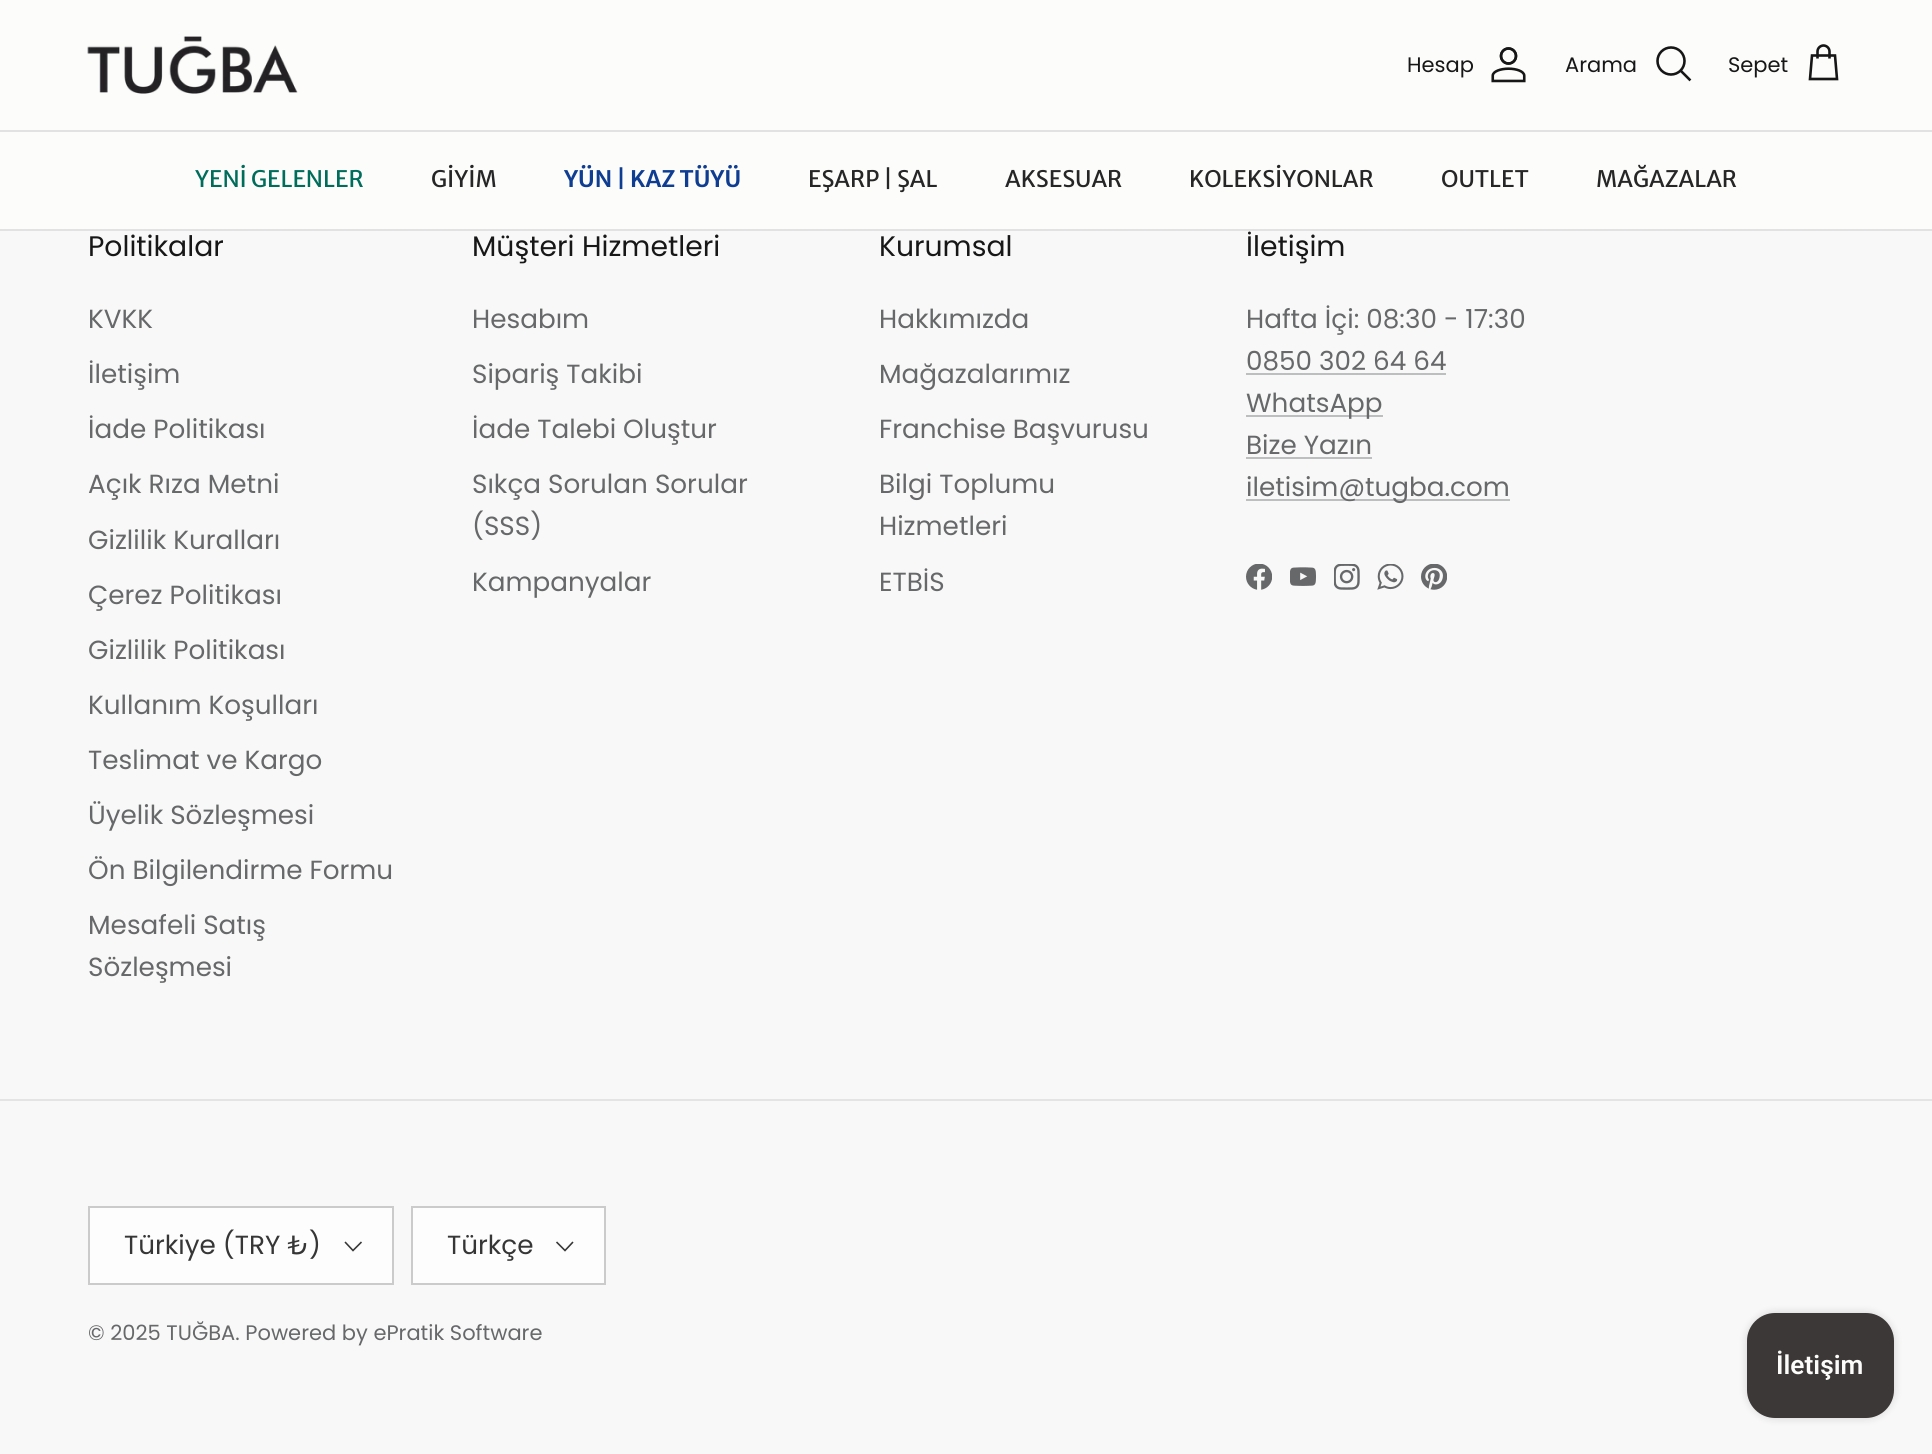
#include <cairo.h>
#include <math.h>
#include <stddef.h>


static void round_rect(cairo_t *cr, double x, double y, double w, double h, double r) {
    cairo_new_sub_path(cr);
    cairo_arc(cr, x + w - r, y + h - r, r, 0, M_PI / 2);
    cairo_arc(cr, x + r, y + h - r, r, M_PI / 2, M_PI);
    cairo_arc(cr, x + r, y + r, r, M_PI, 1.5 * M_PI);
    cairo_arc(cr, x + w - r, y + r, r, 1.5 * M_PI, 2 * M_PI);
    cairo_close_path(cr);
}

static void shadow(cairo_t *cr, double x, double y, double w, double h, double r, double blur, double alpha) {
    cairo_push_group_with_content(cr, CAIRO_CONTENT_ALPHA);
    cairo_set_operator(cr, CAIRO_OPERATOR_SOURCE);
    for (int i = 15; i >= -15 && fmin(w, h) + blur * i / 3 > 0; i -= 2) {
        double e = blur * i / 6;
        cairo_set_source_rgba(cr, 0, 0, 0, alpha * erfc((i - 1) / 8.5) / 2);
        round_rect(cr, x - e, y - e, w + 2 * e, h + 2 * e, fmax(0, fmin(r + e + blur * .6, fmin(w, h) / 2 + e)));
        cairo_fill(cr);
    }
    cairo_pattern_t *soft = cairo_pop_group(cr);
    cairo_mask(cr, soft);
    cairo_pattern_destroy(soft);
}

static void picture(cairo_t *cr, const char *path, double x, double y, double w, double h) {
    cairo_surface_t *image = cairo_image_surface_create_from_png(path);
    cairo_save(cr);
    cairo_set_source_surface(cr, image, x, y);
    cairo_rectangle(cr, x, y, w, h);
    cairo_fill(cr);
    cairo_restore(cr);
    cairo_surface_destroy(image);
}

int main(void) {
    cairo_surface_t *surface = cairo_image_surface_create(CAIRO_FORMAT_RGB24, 1932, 1454);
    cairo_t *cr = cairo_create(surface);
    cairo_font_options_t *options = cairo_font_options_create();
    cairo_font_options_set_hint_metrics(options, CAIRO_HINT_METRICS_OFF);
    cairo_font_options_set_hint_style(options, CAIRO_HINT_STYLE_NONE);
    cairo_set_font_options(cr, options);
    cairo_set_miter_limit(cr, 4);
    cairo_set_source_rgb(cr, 0.969, 0.969, 0.973);
    cairo_paint(cr);
    cairo_set_source_rgb(cr, 0.988, 0.988, 0.984);
    cairo_rectangle(cr, 0, 0, 1932, 130);
    cairo_fill(cr);
    cairo_set_source_rgb(cr, 0.886, 0.886, 0.886);
    cairo_rectangle(cr, 0, 130, 1932, 2);
    cairo_fill(cr);
    picture(cr, "img1.png", 87, 36, 211, 58);
    cairo_select_font_face(cr, "Poppins", CAIRO_FONT_SLANT_NORMAL, CAIRO_FONT_WEIGHT_NORMAL);
    cairo_set_font_size(cr, 21);
    cairo_set_source_rgb(cr, 0.09, 0.09, 0.09);
    cairo_move_to(cr, 1407, 72);
    cairo_show_text(cr, "Hesap");
    picture(cr, "img2.png", 1491, 47, 35, 36);
    cairo_move_to(cr, 1565, 72);
    cairo_show_text(cr, "Arama");
    cairo_new_path(cr);
    cairo_arc(cr, 1671, 61, 13.5, 0, 2 * M_PI);
    cairo_set_source_rgb(cr, 0.086, 0.086, 0.086);
    cairo_set_line_width(cr, 2.6);
    cairo_stroke(cr);
    cairo_new_path(cr);
    cairo_move_to(cr, 1681.5, 71.5);
    cairo_line_to(cr, 1689.5, 79.5);
    cairo_set_line_cap(cr, CAIRO_LINE_CAP_SQUARE);
    cairo_stroke(cr);
    cairo_set_source_rgb(cr, 0.09, 0.09, 0.09);
    cairo_move_to(cr, 1728, 72);
    cairo_show_text(cr, "Sepet");
    cairo_new_path(cr);
    cairo_move_to(cr, 1829.5, 58.5);
    cairo_line_to(cr, 1829.5, 51.5);
    cairo_curve_to(cr, 1829.5, 48, 1826.5, 45.5, 1823.5, 45.5);
    cairo_curve_to(cr, 1820.5, 45.5, 1817.5, 48, 1817.5, 51.5);
    cairo_line_to(cr, 1817.5, 58.5);
    cairo_move_to(cr, 1812, 55.5);
    cairo_line_to(cr, 1835, 55.5);
    cairo_line_to(cr, 1837, 79);
    cairo_line_to(cr, 1810, 79);
    cairo_close_path(cr);
    cairo_set_source_rgb(cr, 0.086, 0.086, 0.086);
    cairo_set_line_cap(cr, CAIRO_LINE_CAP_BUTT);
    cairo_stroke(cr);
    cairo_set_source_rgb(cr, 0.886, 0.886, 0.886);
    cairo_rectangle(cr, 0, 229, 1932, 2);
    cairo_fill(cr);
    cairo_set_source_rgb(cr, 0.988, 0.988, 0.984);
    cairo_rectangle(cr, 0, 132, 1932, 97);
    cairo_fill(cr);
    cairo_select_font_face(cr, "Merriweather Sans", CAIRO_FONT_SLANT_NORMAL, CAIRO_FONT_WEIGHT_NORMAL);
    cairo_set_font_size(cr, 22.75);
    cairo_set_source_rgb(cr, 0, 0.427, 0.357);
    cairo_move_to(cr, 195, 187);
    cairo_show_text(cr, "YENİ GELENLER");
    cairo_set_source_rgb(cr, 0.149, 0.149, 0.149);
    cairo_move_to(cr, 431, 187);
    cairo_show_text(cr, "GİYİM");
    cairo_select_font_face(cr, "Merriweather Sans SemiBold", CAIRO_FONT_SLANT_NORMAL, CAIRO_FONT_WEIGHT_NORMAL);
    cairo_set_source_rgb(cr, 0.059, 0.239, 0.569);
    cairo_move_to(cr, 564, 187);
    cairo_show_text(cr, "YÜN | KAZ TÜYÜ");
    cairo_select_font_face(cr, "Merriweather Sans", CAIRO_FONT_SLANT_NORMAL, CAIRO_FONT_WEIGHT_NORMAL);
    cairo_set_source_rgb(cr, 0.149, 0.149, 0.149);
    cairo_move_to(cr, 808, 187);
    cairo_show_text(cr, "EŞARP | ŞAL");
    cairo_move_to(cr, 1005, 187);
    cairo_show_text(cr, "AKSESUAR");
    cairo_move_to(cr, 1189, 187);
    cairo_show_text(cr, "KOLEKSİYONLAR");
    cairo_move_to(cr, 1441, 187);
    cairo_show_text(cr, "OUTLET");
    cairo_move_to(cr, 1596, 187);
    cairo_show_text(cr, "MAĞAZALAR");
    cairo_select_font_face(cr, "Poppins", CAIRO_FONT_SLANT_NORMAL, CAIRO_FONT_WEIGHT_NORMAL);
    cairo_set_font_size(cr, 28.25);
    cairo_set_source_rgb(cr, 0.09, 0.09, 0.09);
    cairo_move_to(cr, 88, 256);
    cairo_show_text(cr, "Politikalar");
    cairo_set_font_size(cr, 26.25);
    cairo_set_source_rgb(cr, 0.404, 0.408, 0.412);
    cairo_move_to(cr, 88, 328);
    cairo_show_text(cr, "KVKK");
    cairo_move_to(cr, 88, 383);
    cairo_show_text(cr, "İletişim");
    cairo_move_to(cr, 88, 438);
    cairo_show_text(cr, "İade Politikası");
    cairo_move_to(cr, 88, 493);
    cairo_show_text(cr, "Açık Rıza Metni");
    cairo_move_to(cr, 88, 549);
    cairo_show_text(cr, "Gizlilik Kuralları");
    cairo_move_to(cr, 88, 604);
    cairo_show_text(cr, "Çerez Politikası");
    cairo_move_to(cr, 88, 659);
    cairo_show_text(cr, "Gizlilik Politikası");
    cairo_move_to(cr, 88, 714);
    cairo_show_text(cr, "Kullanım Koşulları");
    cairo_move_to(cr, 88, 769);
    cairo_show_text(cr, "Teslimat ve Kargo");
    cairo_move_to(cr, 88, 824);
    cairo_show_text(cr, "Üyelik Sözleşmesi");
    cairo_move_to(cr, 88, 879);
    cairo_show_text(cr, "Ön Bilgilendirme Formu");
    cairo_move_to(cr, 88, 934);
    cairo_show_text(cr, "Mesafeli Satış");
    cairo_move_to(cr, 88, 976);
    cairo_show_text(cr, "Sözleşmesi");
    cairo_set_font_size(cr, 28.25);
    cairo_set_source_rgb(cr, 0.09, 0.09, 0.09);
    cairo_move_to(cr, 472, 256);
    cairo_show_text(cr, "Müşteri Hizmetleri");
    cairo_set_font_size(cr, 26.25);
    cairo_set_source_rgb(cr, 0.404, 0.408, 0.412);
    cairo_move_to(cr, 472, 328);
    cairo_show_text(cr, "Hesabım");
    cairo_move_to(cr, 472, 383);
    cairo_show_text(cr, "Sipariş Takibi");
    cairo_move_to(cr, 472, 438);
    cairo_show_text(cr, "İade Talebi Oluştur");
    cairo_move_to(cr, 472, 493);
    cairo_show_text(cr, "Sıkça Sorulan Sorular");
    cairo_move_to(cr, 472, 535);
    cairo_show_text(cr, "(SSS)");
    cairo_move_to(cr, 472, 591);
    cairo_show_text(cr, "Kampanyalar");
    cairo_set_font_size(cr, 28.25);
    cairo_set_source_rgb(cr, 0.09, 0.09, 0.09);
    cairo_move_to(cr, 879, 256);
    cairo_show_text(cr, "Kurumsal");
    cairo_set_font_size(cr, 26.25);
    cairo_set_source_rgb(cr, 0.404, 0.408, 0.412);
    cairo_move_to(cr, 879, 328);
    cairo_show_text(cr, "Hakkımızda");
    cairo_move_to(cr, 879, 383);
    cairo_show_text(cr, "Mağazalarımız");
    cairo_move_to(cr, 879, 438);
    cairo_show_text(cr, "Franchise Başvurusu");
    cairo_move_to(cr, 879, 493);
    cairo_show_text(cr, "Bilgi Toplumu");
    cairo_move_to(cr, 879, 535);
    cairo_show_text(cr, "Hizmetleri");
    cairo_move_to(cr, 879, 591);
    cairo_show_text(cr, "ETBİS");
    cairo_set_font_size(cr, 28.25);
    cairo_set_source_rgb(cr, 0.09, 0.09, 0.09);
    cairo_move_to(cr, 1246, 256);
    cairo_show_text(cr, "İletişim");
    cairo_set_font_size(cr, 26.25);
    cairo_set_source_rgb(cr, 0.404, 0.408, 0.412);
    cairo_move_to(cr, 1246, 328);
    cairo_show_text(cr, "Hafta İçi: 08:30 - 17:30");
    cairo_move_to(cr, 1246, 370);
    cairo_show_text(cr, "0850 302 64 64");
    cairo_set_source_rgb(cr, 0.741, 0.745, 0.749);
    cairo_rectangle(cr, 1246, 373, 200, 2);
    cairo_fill(cr);
    cairo_rectangle(cr, 1246, 415, 137, 2);
    cairo_fill(cr);
    cairo_set_source_rgb(cr, 0.404, 0.408, 0.412);
    cairo_move_to(cr, 1246, 412);
    cairo_show_text(cr, "WhatsApp");
    cairo_move_to(cr, 1246, 454);
    cairo_show_text(cr, "Bize Yazın");
    cairo_set_source_rgb(cr, 0.741, 0.745, 0.749);
    cairo_rectangle(cr, 1246, 457, 126, 2);
    cairo_fill(cr);
    cairo_rectangle(cr, 1246, 499, 264, 2);
    cairo_fill(cr);
    cairo_set_source_rgb(cr, 0.404, 0.408, 0.412);
    cairo_move_to(cr, 1246, 496);
    cairo_show_text(cr, "iletisim@tugba.com");
    picture(cr, "img3.png", 1246, 564, 26, 26);
    picture(cr, "img4.png", 1290, 567, 26, 19);
    picture(cr, "img5.png", 1334, 564, 26, 26);
    picture(cr, "img6.png", 1377, 564, 27, 26);
    picture(cr, "img7.png", 1421, 564, 26, 26);
    cairo_set_source_rgb(cr, 0.894, 0.894, 0.894);
    cairo_rectangle(cr, 0, 1099, 1932, 2);
    cairo_fill(cr);
    cairo_set_source_rgb(cr, 0.992, 0.992, 0.992);
    cairo_rectangle(cr, 89, 1207, 304, 77);
    cairo_fill_preserve(cr);
    cairo_set_source_rgb(cr, 0.796, 0.796, 0.796);
    cairo_set_line_width(cr, 2);
    cairo_stroke(cr);
    cairo_set_source_rgb(cr, 0.212, 0.212, 0.212);
    cairo_move_to(cr, 124, 1254);
    cairo_show_text(cr, "Türkiye (TRY ₺)");
    cairo_new_path(cr);
    cairo_move_to(cr, 361.5, 1242);
    cairo_line_to(cr, 353, 1250.5);
    cairo_line_to(cr, 345, 1242);
    cairo_set_line_width(cr, 1.6);
    cairo_stroke(cr);
    cairo_set_source_rgb(cr, 0.992, 0.992, 0.992);
    cairo_rectangle(cr, 412, 1207, 193, 77);
    cairo_fill_preserve(cr);
    cairo_set_source_rgb(cr, 0.796, 0.796, 0.796);
    cairo_set_line_width(cr, 2);
    cairo_stroke(cr);
    cairo_set_source_rgb(cr, 0.212, 0.212, 0.212);
    cairo_move_to(cr, 447, 1254);
    cairo_show_text(cr, "Türkçe");
    cairo_new_path(cr);
    cairo_move_to(cr, 573, 1242);
    cairo_line_to(cr, 565, 1250.5);
    cairo_line_to(cr, 556.5, 1242);
    cairo_set_line_width(cr, 1.6);
    cairo_stroke(cr);
    cairo_set_font_size(cr, 21);
    cairo_set_source_rgb(cr, 0.404, 0.408, 0.412);
    cairo_move_to(cr, 88, 1340);
    cairo_show_text(cr, "© 2025 TUĞBA. Powered by ePratik Software");
    cairo_set_source_rgb(cr, 0, 0, 0);
    shadow(cr, 1747, 1313, 147, 105, 28, 4.5, 0.15);
    cairo_set_source_rgb(cr, 0.239, 0.22, 0.22);
    round_rect(cr, 1747, 1313, 147, 105, 28);
    cairo_fill(cr);
    cairo_select_font_face(cr, "Roboto SemiBold", CAIRO_FONT_SLANT_NORMAL, CAIRO_FONT_WEIGHT_NORMAL);
    cairo_set_font_size(cr, 26.25);
    cairo_set_source_rgb(cr, 0.988, 0.988, 0.984);
    cairo_move_to(cr, 1776, 1374);
    cairo_show_text(cr, "İletişim");
    cairo_surface_write_to_png(surface, "page.png");
    cairo_font_options_destroy(options);
    cairo_destroy(cr);
    cairo_surface_destroy(surface);
    return 0;
}
